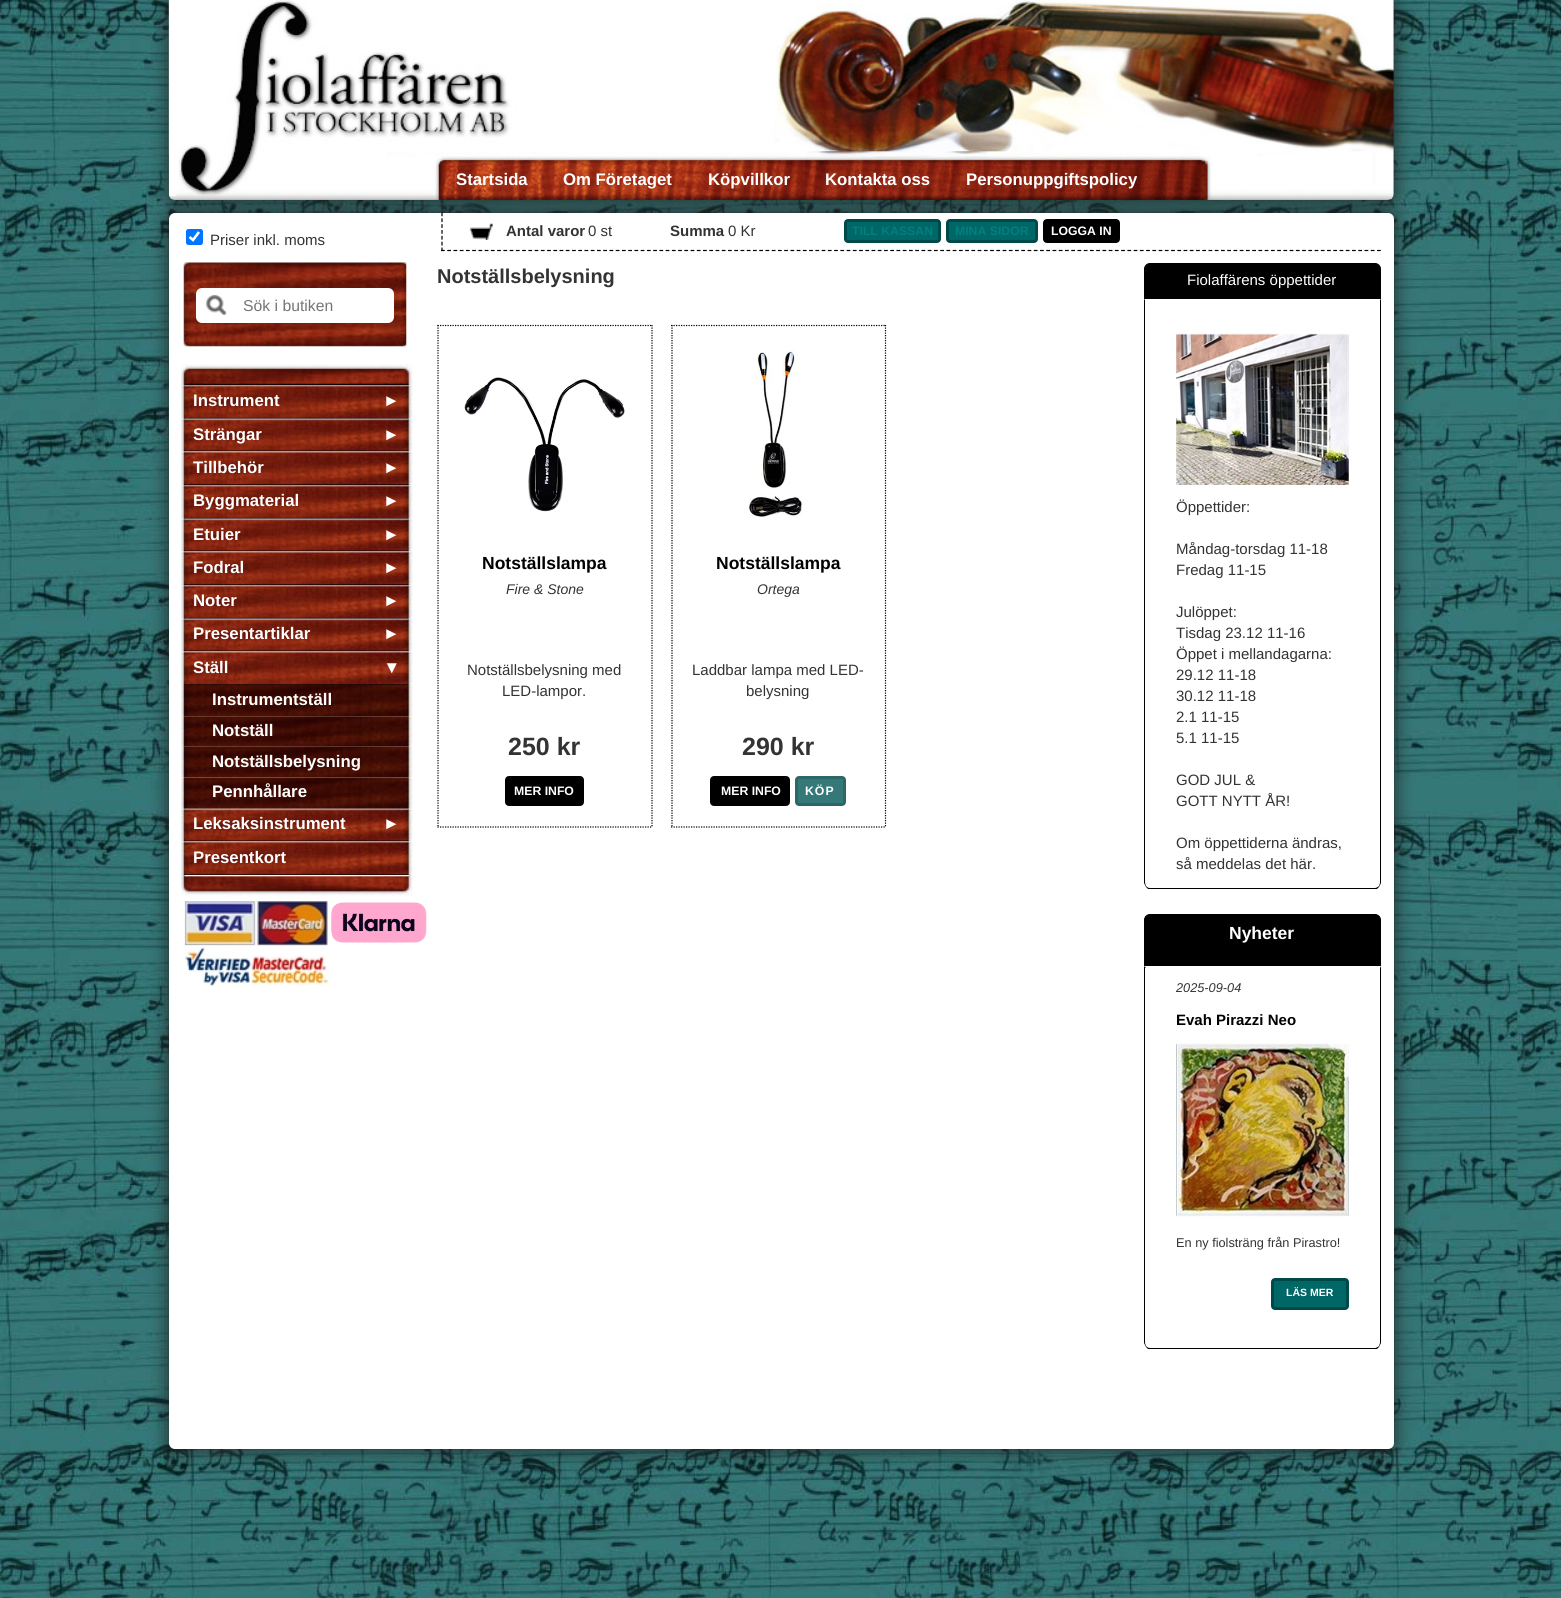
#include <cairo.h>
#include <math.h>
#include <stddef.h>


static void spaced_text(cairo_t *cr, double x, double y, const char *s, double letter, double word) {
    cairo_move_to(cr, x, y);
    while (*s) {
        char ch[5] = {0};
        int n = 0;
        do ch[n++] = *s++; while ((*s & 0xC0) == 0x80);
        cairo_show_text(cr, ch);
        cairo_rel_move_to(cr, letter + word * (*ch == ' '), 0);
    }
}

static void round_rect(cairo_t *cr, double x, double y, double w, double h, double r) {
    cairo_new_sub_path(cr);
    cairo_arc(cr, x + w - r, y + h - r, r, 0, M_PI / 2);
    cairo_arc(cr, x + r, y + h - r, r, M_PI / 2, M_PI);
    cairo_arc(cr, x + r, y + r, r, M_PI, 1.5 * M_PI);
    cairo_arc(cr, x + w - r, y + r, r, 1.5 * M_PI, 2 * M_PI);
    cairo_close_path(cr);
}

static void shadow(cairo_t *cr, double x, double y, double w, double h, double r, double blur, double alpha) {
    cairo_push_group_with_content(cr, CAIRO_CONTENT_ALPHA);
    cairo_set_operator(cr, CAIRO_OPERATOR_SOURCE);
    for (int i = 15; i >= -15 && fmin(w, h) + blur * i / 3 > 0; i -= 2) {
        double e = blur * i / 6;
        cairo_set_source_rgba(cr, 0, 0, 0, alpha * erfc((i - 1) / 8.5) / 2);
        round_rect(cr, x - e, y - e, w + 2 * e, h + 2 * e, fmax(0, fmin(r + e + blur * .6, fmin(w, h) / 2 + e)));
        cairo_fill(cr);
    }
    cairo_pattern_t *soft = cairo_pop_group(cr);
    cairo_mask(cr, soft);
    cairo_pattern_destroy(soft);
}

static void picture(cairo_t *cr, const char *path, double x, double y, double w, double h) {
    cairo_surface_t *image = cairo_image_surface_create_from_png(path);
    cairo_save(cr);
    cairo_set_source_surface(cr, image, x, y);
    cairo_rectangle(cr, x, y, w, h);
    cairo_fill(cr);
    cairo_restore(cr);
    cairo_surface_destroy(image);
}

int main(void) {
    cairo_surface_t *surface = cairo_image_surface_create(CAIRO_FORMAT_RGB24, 1561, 1598);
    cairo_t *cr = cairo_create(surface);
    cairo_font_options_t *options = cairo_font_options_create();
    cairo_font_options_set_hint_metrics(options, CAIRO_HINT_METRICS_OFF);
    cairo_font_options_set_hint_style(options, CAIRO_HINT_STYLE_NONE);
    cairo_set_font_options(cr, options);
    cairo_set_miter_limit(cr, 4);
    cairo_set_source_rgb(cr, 1, 1, 1);
    cairo_paint(cr);
    picture(cr, "img1.png", 0, 0, 1561, 1598);
    cairo_set_source_rgb(cr, 0.133, 0.133, 0.133);
    shadow(cr, 169, 0, 1225, 200, 6, 9.5, 1);
    picture(cr, "img2.png", 168, 0, 1226, 200);
    picture(cr, "img3.png", 168, 0, 17, 155);
    cairo_select_font_face(cr, "Liberation Sans", CAIRO_FONT_SLANT_NORMAL, CAIRO_FONT_WEIGHT_BOLD);
    cairo_set_font_size(cr, 16.75);
    cairo_set_source_rgb(cr, 1, 1, 1);
    cairo_move_to(cr, 456, 185);
    cairo_show_text(cr, "Startsida");
    cairo_move_to(cr, 563, 185);
    cairo_show_text(cr, "Om Företaget");
    cairo_move_to(cr, 708, 185);
    cairo_show_text(cr, "Köpvillkor");
    cairo_move_to(cr, 825, 185);
    cairo_show_text(cr, "Kontakta oss");
    cairo_move_to(cr, 966, 185);
    cairo_show_text(cr, "Personuppgiftspolicy");
    cairo_set_source_rgb(cr, 0.133, 0.133, 0.133);
    shadow(cr, 169, 213, 1225, 1236, 6, 9.5, 1);
    cairo_set_source_rgb(cr, 1, 1, 1);
    round_rect(cr, 169, 213, 1225, 1236, 6);
    cairo_fill(cr);
    cairo_new_path(cr);
    cairo_move_to(cr, 441, 250.5);
    cairo_line_to(cr, 1381, 250.5);
    cairo_set_source_rgb(cr, 0, 0, 0);
    cairo_set_line_width(cr, 1.2);
    cairo_set_dash(cr, (double[]){3.75, 2.49}, 2, 0);
    cairo_stroke(cr);
    cairo_new_path(cr);
    cairo_move_to(cr, 442, 212.5);
    cairo_line_to(cr, 442, 251);
    cairo_set_dash(cr, (double[]){3.75, 2.09}, 2, 0);
    cairo_stroke(cr);
    picture(cr, "img4.png", 469, 223, 24, 17);
    cairo_set_font_size(cr, 15);
    cairo_set_source_rgb(cr, 0.2, 0.2, 0.2);
    cairo_move_to(cr, 506, 236);
    cairo_show_text(cr, "Antal varor");
    cairo_select_font_face(cr, "Liberation Sans", CAIRO_FONT_SLANT_NORMAL, CAIRO_FONT_WEIGHT_NORMAL);
    cairo_move_to(cr, 588, 236);
    cairo_show_text(cr, "0 st");
    cairo_select_font_face(cr, "Liberation Sans", CAIRO_FONT_SLANT_NORMAL, CAIRO_FONT_WEIGHT_BOLD);
    cairo_move_to(cr, 670, 236);
    cairo_show_text(cr, "Summa");
    cairo_select_font_face(cr, "Liberation Sans", CAIRO_FONT_SLANT_NORMAL, CAIRO_FONT_WEIGHT_NORMAL);
    cairo_move_to(cr, 728, 236);
    cairo_show_text(cr, "0 Kr");
    cairo_set_source_rgb(cr, 0, 0.404, 0.404);
    round_rect(cr, 845.5, 220.5, 94, 21, 2.5);
    cairo_fill_preserve(cr);
    cairo_set_source_rgb(cr, 0, 0.286, 0.286);
    cairo_set_line_width(cr, 3);
    cairo_set_dash(cr, NULL, 0, 0);
    cairo_stroke(cr);
    cairo_select_font_face(cr, "Liberation Sans", CAIRO_FONT_SLANT_NORMAL, CAIRO_FONT_WEIGHT_BOLD);
    cairo_set_font_size(cr, 12.25);
    cairo_set_source_rgb(cr, 0.008, 0.494, 0.494);
    cairo_move_to(cr, 852, 235);
    cairo_show_text(cr, "TILL KASSAN");
    cairo_set_source_rgb(cr, 0, 0.404, 0.404);
    round_rect(cr, 947.5, 220.5, 89, 21, 2.5);
    cairo_fill_preserve(cr);
    cairo_set_source_rgb(cr, 0, 0.286, 0.286);
    cairo_stroke(cr);
    cairo_set_source_rgb(cr, 0.008, 0.494, 0.494);
    cairo_move_to(cr, 955, 235);
    cairo_show_text(cr, "MINA SIDOR");
    cairo_set_source_rgb(cr, 0, 0, 0);
    round_rect(cr, 1044.5, 220.5, 74, 21, 2.5);
    cairo_fill_preserve(cr);
    cairo_stroke(cr);
    cairo_set_source_rgb(cr, 1, 1, 1);
    cairo_move_to(cr, 1051, 235);
    cairo_show_text(cr, "LOGGA IN");
    cairo_set_source_rgb(cr, 0, 0.459, 1);
    round_rect(cr, 186, 229, 17, 16, 2.5);
    cairo_fill(cr);
    cairo_new_path(cr);
    cairo_move_to(cr, 189.5, 237);
    cairo_line_to(cr, 193, 240);
    cairo_line_to(cr, 199, 232);
    cairo_set_source_rgb(cr, 1, 1, 1);
    cairo_set_line_width(cr, 2.6);
    cairo_stroke(cr);
    cairo_select_font_face(cr, "Liberation Sans", CAIRO_FONT_SLANT_NORMAL, CAIRO_FONT_WEIGHT_NORMAL);
    cairo_set_font_size(cr, 15);
    cairo_set_source_rgb(cr, 0.2, 0.2, 0.2);
    cairo_move_to(cr, 210, 245);
    cairo_show_text(cr, "Priser inkl. moms");
    picture(cr, "img5.png", 183, 262, 224, 85);
    cairo_set_source_rgb(cr, 1, 1, 1);
    round_rect(cr, 196, 288, 198, 35, 6);
    cairo_fill(cr);
    picture(cr, "img6.png", 206, 295, 21, 20);
    cairo_set_font_size(cr, 15.75);
    cairo_set_source_rgb(cr, 0.459, 0.459, 0.459);
    cairo_move_to(cr, 243, 311);
    cairo_show_text(cr, "Sök i butiken");
    picture(cr, "img7.png", 181, 364, 232, 21);
    picture(cr, "img8.png", 181, 385, 232, 34);
    cairo_select_font_face(cr, "Liberation Sans", CAIRO_FONT_SLANT_NORMAL, CAIRO_FONT_WEIGHT_BOLD);
    cairo_set_font_size(cr, 16.75);
    cairo_set_source_rgb(cr, 1, 1, 1);
    cairo_move_to(cr, 193, 406);
    cairo_show_text(cr, "Instrument");
    cairo_move_to(cr, 383, 406);
    cairo_show_text(cr, "►");
    picture(cr, "img9.png", 181, 418, 232, 34);
    cairo_move_to(cr, 193, 440);
    cairo_show_text(cr, "Strängar");
    cairo_move_to(cr, 383, 440);
    cairo_show_text(cr, "►");
    picture(cr, "img10.png", 181, 451, 232, 34);
    cairo_move_to(cr, 193, 473);
    cairo_show_text(cr, "Tillbehör");
    cairo_move_to(cr, 383, 473);
    cairo_show_text(cr, "►");
    picture(cr, "img8.png", 181, 485, 232, 34);
    cairo_move_to(cr, 193, 506);
    cairo_show_text(cr, "Byggmaterial");
    cairo_move_to(cr, 383, 506);
    cairo_show_text(cr, "►");
    picture(cr, "img9.png", 181, 518, 232, 34);
    cairo_move_to(cr, 193, 540);
    cairo_show_text(cr, "Etuier");
    cairo_move_to(cr, 383, 540);
    cairo_show_text(cr, "►");
    picture(cr, "img10.png", 181, 551, 232, 34);
    cairo_move_to(cr, 193, 573);
    cairo_show_text(cr, "Fodral");
    cairo_move_to(cr, 383, 573);
    cairo_show_text(cr, "►");
    picture(cr, "img8.png", 181, 585, 232, 34);
    cairo_move_to(cr, 193, 606);
    cairo_show_text(cr, "Noter");
    cairo_move_to(cr, 383, 606);
    cairo_show_text(cr, "►");
    picture(cr, "img9.png", 181, 618, 232, 34);
    cairo_move_to(cr, 193, 639);
    cairo_show_text(cr, "Presentartiklar");
    cairo_move_to(cr, 383, 639);
    cairo_show_text(cr, "►");
    picture(cr, "img10.png", 181, 651, 232, 34);
    cairo_move_to(cr, 193, 673);
    cairo_show_text(cr, "Ställ");
    cairo_save(cr);
    cairo_translate(cr, 387, 660);
    cairo_rotate(cr, 90 * M_PI / 180);
    cairo_move_to(cr, 0, 0);
    cairo_show_text(cr, "►");
    cairo_restore(cr);
    picture(cr, "img11.png", 181, 685, 232, 32);
    cairo_move_to(cr, 212, 705);
    cairo_show_text(cr, "Instrumentställ");
    picture(cr, "img12.png", 181, 716, 232, 31);
    cairo_move_to(cr, 212, 736);
    cairo_show_text(cr, "Notställ");
    picture(cr, "img13.png", 181, 746, 232, 32);
    cairo_move_to(cr, 212, 767);
    cairo_show_text(cr, "Notställsbelysning");
    picture(cr, "img14.png", 181, 777, 232, 32);
    cairo_move_to(cr, 212, 797);
    cairo_show_text(cr, "Pennhållare");
    picture(cr, "img15.png", 181, 808, 232, 34);
    cairo_move_to(cr, 193, 829);
    cairo_show_text(cr, "Leksaksinstrument");
    cairo_move_to(cr, 383, 829);
    cairo_show_text(cr, "►");
    picture(cr, "img16.png", 181, 875, 232, 21);
    picture(cr, "img10.png", 181, 841, 232, 34);
    cairo_move_to(cr, 193, 863);
    cairo_show_text(cr, "Presentkort");
    picture(cr, "img17.png", 184, 901, 146, 86);
    picture(cr, "img18.png", 331, 902, 96, 41);
    cairo_set_font_size(cr, 20);
    cairo_set_source_rgb(cr, 0.2, 0.2, 0.2);
    cairo_move_to(cr, 437, 283);
    cairo_show_text(cr, "Notställsbelysning");
    cairo_new_path(cr);
    cairo_move_to(cr, 437.5, 325.5);
    cairo_line_to(cr, 652.5, 325.5);
    cairo_set_source_rgb(cr, 0, 0, 0);
    cairo_set_line_width(cr, 1.2);
    cairo_set_dash(cr, (double[]){1.25, 1.25}, 2, 0);
    cairo_stroke(cr);
    cairo_new_path(cr);
    cairo_move_to(cr, 652, 325);
    cairo_line_to(cr, 652, 827.5);
    cairo_stroke(cr);
    cairo_new_path(cr);
    cairo_move_to(cr, 437.5, 827);
    cairo_line_to(cr, 652.5, 827);
    cairo_stroke(cr);
    cairo_new_path(cr);
    cairo_move_to(cr, 438, 325);
    cairo_line_to(cr, 438, 827.5);
    cairo_stroke(cr);
    picture(cr, "img19.png", 464, 377, 161, 135);
    cairo_set_font_size(cr, 17.5);
    cairo_move_to(cr, 482, 569);
    cairo_show_text(cr, "Notställslampa");
    cairo_select_font_face(cr, "Liberation Sans", CAIRO_FONT_SLANT_ITALIC, CAIRO_FONT_WEIGHT_NORMAL);
    cairo_set_font_size(cr, 14);
    cairo_set_source_rgb(cr, 0.2, 0.2, 0.2);
    cairo_move_to(cr, 506, 594);
    cairo_show_text(cr, "Fire & Stone");
    cairo_select_font_face(cr, "Liberation Sans", CAIRO_FONT_SLANT_NORMAL, CAIRO_FONT_WEIGHT_NORMAL);
    cairo_set_font_size(cr, 15);
    cairo_move_to(cr, 467, 675);
    cairo_show_text(cr, "Notställsbelysning med");
    cairo_move_to(cr, 502, 696);
    cairo_show_text(cr, "LED-lampor.");
    cairo_select_font_face(cr, "Liberation Sans", CAIRO_FONT_SLANT_NORMAL, CAIRO_FONT_WEIGHT_BOLD);
    cairo_set_font_size(cr, 25);
    cairo_move_to(cr, 508, 755);
    cairo_show_text(cr, "250 kr");
    cairo_set_source_rgb(cr, 0, 0, 0);
    round_rect(cr, 506.5, 777.5, 76, 27, 2.5);
    cairo_fill_preserve(cr);
    cairo_set_line_width(cr, 3);
    cairo_set_dash(cr, NULL, 0, 0);
    cairo_stroke(cr);
    cairo_set_font_size(cr, 12.25);
    cairo_set_source_rgb(cr, 1, 1, 1);
    cairo_move_to(cr, 514, 795);
    cairo_show_text(cr, "MER INFO");
    cairo_new_path(cr);
    cairo_move_to(cr, 671, 325.5);
    cairo_line_to(cr, 886, 325.5);
    cairo_set_source_rgb(cr, 0, 0, 0);
    cairo_set_line_width(cr, 1.2);
    cairo_set_dash(cr, (double[]){1.25, 1.25}, 2, 0);
    cairo_stroke(cr);
    cairo_new_path(cr);
    cairo_move_to(cr, 885.5, 325);
    cairo_line_to(cr, 885.5, 827.5);
    cairo_stroke(cr);
    cairo_new_path(cr);
    cairo_move_to(cr, 671, 827);
    cairo_line_to(cr, 886, 827);
    cairo_stroke(cr);
    cairo_new_path(cr);
    cairo_move_to(cr, 672, 325);
    cairo_line_to(cr, 672, 827.5);
    cairo_stroke(cr);
    picture(cr, "img20.png", 749, 350, 53, 168);
    cairo_set_font_size(cr, 17.5);
    cairo_move_to(cr, 716, 569);
    cairo_show_text(cr, "Notställslampa");
    cairo_select_font_face(cr, "Liberation Sans", CAIRO_FONT_SLANT_ITALIC, CAIRO_FONT_WEIGHT_NORMAL);
    cairo_set_font_size(cr, 14);
    cairo_set_source_rgb(cr, 0.2, 0.2, 0.2);
    cairo_move_to(cr, 757, 594);
    cairo_show_text(cr, "Ortega");
    cairo_select_font_face(cr, "Liberation Sans", CAIRO_FONT_SLANT_NORMAL, CAIRO_FONT_WEIGHT_NORMAL);
    cairo_set_font_size(cr, 15);
    cairo_move_to(cr, 692, 675);
    cairo_show_text(cr, "Laddbar lampa med LED-");
    cairo_move_to(cr, 746, 696);
    cairo_show_text(cr, "belysning");
    cairo_select_font_face(cr, "Liberation Sans", CAIRO_FONT_SLANT_NORMAL, CAIRO_FONT_WEIGHT_BOLD);
    cairo_set_font_size(cr, 25);
    cairo_move_to(cr, 742, 755);
    cairo_show_text(cr, "290 kr");
    cairo_set_source_rgb(cr, 0, 0, 0);
    round_rect(cr, 711.5, 777.5, 77, 27, 2.5);
    cairo_fill_preserve(cr);
    cairo_set_line_width(cr, 3);
    cairo_set_dash(cr, NULL, 0, 0);
    cairo_stroke(cr);
    cairo_set_font_size(cr, 12.25);
    cairo_set_source_rgb(cr, 1, 1, 1);
    cairo_move_to(cr, 721, 795);
    cairo_show_text(cr, "MER INFO");
    cairo_set_source_rgb(cr, 0.204, 0.471, 0.467);
    round_rect(cr, 796.5, 777.5, 48, 27, 2.5);
    cairo_fill_preserve(cr);
    cairo_set_source_rgb(cr, 0.165, 0.404, 0.4);
    cairo_stroke(cr);
    cairo_set_source_rgb(cr, 1, 1, 1);
    spaced_text(cr, 805, 795, "KÖP", 1, 0);
    cairo_set_source_rgb(cr, 0, 0, 0);
    cairo_new_path(cr);
    cairo_move_to(cr, 1150, 263.5);
    cairo_line_to(cr, 1375, 263.5);
    cairo_curve_to(cr, 1378, 263.5, 1380.5, 266, 1380.5, 269);
    cairo_line_to(cr, 1380.5, 298.5);
    cairo_line_to(cr, 1144.5, 298.5);
    cairo_line_to(cr, 1144.5, 269);
    cairo_curve_to(cr, 1144.5, 266, 1147, 263.5, 1150, 263.5);
    cairo_close_path(cr);
    cairo_fill_preserve(cr);
    cairo_set_line_width(cr, 1);
    cairo_stroke(cr);
    cairo_select_font_face(cr, "Liberation Sans", CAIRO_FONT_SLANT_NORMAL, CAIRO_FONT_WEIGHT_NORMAL);
    cairo_set_font_size(cr, 15);
    cairo_set_source_rgb(cr, 1, 1, 1);
    cairo_move_to(cr, 1187, 285);
    cairo_show_text(cr, "Fiolaffärens öppettider");
    cairo_set_source_rgb(cr, 0, 0, 0);
    cairo_new_path(cr);
    cairo_move_to(cr, 1379, 887);
    cairo_line_to(cr, 1381, 883);
    cairo_line_to(cr, 1381, 299);
    cairo_line_to(cr, 1380, 300);
    cairo_line_to(cr, 1380, 883);
    cairo_line_to(cr, 1379, 886);
    cairo_close_path(cr);
    cairo_fill(cr);
    cairo_new_path(cr);
    cairo_move_to(cr, 1148, 889);
    cairo_line_to(cr, 1146, 887);
    cairo_line_to(cr, 1146, 886);
    cairo_curve_to(cr, 1147, 887, 1148, 888, 1150, 888);
    cairo_line_to(cr, 1375, 888);
    cairo_curve_to(cr, 1376, 888, 1378, 887, 1379, 886);
    cairo_line_to(cr, 1379, 887);
    cairo_line_to(cr, 1377, 889);
    cairo_close_path(cr);
    cairo_fill(cr);
    cairo_new_path(cr);
    cairo_move_to(cr, 1145, 300);
    cairo_line_to(cr, 1144, 299);
    cairo_line_to(cr, 1144, 883);
    cairo_line_to(cr, 1146, 887);
    cairo_line_to(cr, 1146, 886);
    cairo_curve_to(cr, 1146, 885, 1145, 884, 1145, 882);
    cairo_close_path(cr);
    cairo_fill(cr);
    picture(cr, "img21.png", 1176, 333, 173, 152);
    cairo_set_source_rgb(cr, 0.2, 0.2, 0.2);
    cairo_move_to(cr, 1176, 512);
    cairo_show_text(cr, "Öppettider:");
    cairo_move_to(cr, 1176, 554);
    cairo_show_text(cr, "Måndag-torsdag 11-18");
    cairo_move_to(cr, 1176, 575);
    cairo_show_text(cr, "Fredag 11-15");
    cairo_move_to(cr, 1176, 617);
    cairo_show_text(cr, "Julöppet:");
    cairo_move_to(cr, 1176, 638);
    cairo_show_text(cr, "Tisdag 23.12 11-16");
    cairo_move_to(cr, 1176, 659);
    cairo_show_text(cr, "Öppet i mellandagarna:");
    cairo_move_to(cr, 1176, 680);
    cairo_show_text(cr, "29.12 11-18");
    cairo_move_to(cr, 1176, 701);
    cairo_show_text(cr, "30.12 11-18");
    cairo_move_to(cr, 1176, 722);
    cairo_show_text(cr, "2.1 11-15");
    cairo_move_to(cr, 1176, 743);
    cairo_show_text(cr, "5.1 11-15");
    cairo_move_to(cr, 1176, 785);
    cairo_show_text(cr, "GOD JUL &");
    cairo_move_to(cr, 1176, 806);
    cairo_show_text(cr, "GOTT NYTT ÅR!");
    cairo_move_to(cr, 1176, 848);
    cairo_show_text(cr, "Om öppettiderna ändras,");
    cairo_move_to(cr, 1176, 869);
    cairo_show_text(cr, "så meddelas det här.");
    cairo_set_source_rgb(cr, 0, 0, 0);
    cairo_new_path(cr);
    cairo_move_to(cr, 1150, 914.5);
    cairo_line_to(cr, 1375, 914.5);
    cairo_curve_to(cr, 1378, 914.5, 1380.5, 917, 1380.5, 920);
    cairo_line_to(cr, 1380.5, 965.5);
    cairo_line_to(cr, 1144.5, 965.5);
    cairo_line_to(cr, 1144.5, 920);
    cairo_curve_to(cr, 1144.5, 917, 1147, 914.5, 1150, 914.5);
    cairo_close_path(cr);
    cairo_fill_preserve(cr);
    cairo_stroke(cr);
    cairo_select_font_face(cr, "Liberation Sans", CAIRO_FONT_SLANT_NORMAL, CAIRO_FONT_WEIGHT_BOLD);
    cairo_set_font_size(cr, 17.5);
    cairo_set_source_rgb(cr, 1, 1, 1);
    cairo_move_to(cr, 1229, 939);
    cairo_show_text(cr, "Nyheter");
    cairo_set_source_rgb(cr, 0, 0, 0);
    cairo_new_path(cr);
    cairo_move_to(cr, 1381, 966);
    cairo_line_to(cr, 1381, 1343);
    cairo_line_to(cr, 1379, 1347);
    cairo_line_to(cr, 1379, 1346);
    cairo_line_to(cr, 1380, 1343);
    cairo_line_to(cr, 1380, 968);
    cairo_close_path(cr);
    cairo_fill(cr);
    cairo_new_path(cr);
    cairo_move_to(cr, 1148, 1349);
    cairo_line_to(cr, 1146, 1347);
    cairo_line_to(cr, 1146, 1346);
    cairo_curve_to(cr, 1147, 1347, 1148, 1348, 1150, 1348);
    cairo_line_to(cr, 1375, 1348);
    cairo_curve_to(cr, 1376, 1348, 1378, 1347, 1379, 1346);
    cairo_line_to(cr, 1379, 1347);
    cairo_line_to(cr, 1377, 1349);
    cairo_close_path(cr);
    cairo_fill(cr);
    cairo_new_path(cr);
    cairo_move_to(cr, 1145, 968);
    cairo_line_to(cr, 1145, 1343);
    cairo_line_to(cr, 1146, 1346);
    cairo_line_to(cr, 1146, 1347);
    cairo_line_to(cr, 1144, 1343);
    cairo_line_to(cr, 1144, 966);
    cairo_line_to(cr, 1146, 968);
    cairo_close_path(cr);
    cairo_fill(cr);
    cairo_select_font_face(cr, "Liberation Sans", CAIRO_FONT_SLANT_ITALIC, CAIRO_FONT_WEIGHT_NORMAL);
    cairo_set_font_size(cr, 12.75);
    cairo_set_source_rgb(cr, 0.2, 0.2, 0.2);
    cairo_move_to(cr, 1176, 992);
    cairo_show_text(cr, "2025-09-04");
    cairo_select_font_face(cr, "Liberation Sans", CAIRO_FONT_SLANT_NORMAL, CAIRO_FONT_WEIGHT_BOLD);
    cairo_set_font_size(cr, 15);
    cairo_set_source_rgb(cr, 0, 0, 0);
    cairo_move_to(cr, 1176, 1025);
    cairo_show_text(cr, "Evah Pirazzi Neo");
    picture(cr, "img22.png", 1176, 1043, 173, 174);
    cairo_select_font_face(cr, "Liberation Sans", CAIRO_FONT_SLANT_NORMAL, CAIRO_FONT_WEIGHT_NORMAL);
    cairo_set_font_size(cr, 12.75);
    cairo_set_source_rgb(cr, 0.2, 0.2, 0.2);
    cairo_move_to(cr, 1176, 1247);
    cairo_show_text(cr, "En ny fiolsträng från Pirastro!");
    cairo_set_source_rgb(cr, 0, 0.404, 0.404);
    round_rect(cr, 1272.5, 1279.5, 75, 29, 2.5);
    cairo_fill_preserve(cr);
    cairo_set_source_rgb(cr, 0, 0.286, 0.286);
    cairo_set_line_width(cr, 3);
    cairo_stroke(cr);
    cairo_select_font_face(cr, "Liberation Sans", CAIRO_FONT_SLANT_NORMAL, CAIRO_FONT_WEIGHT_BOLD);
    cairo_set_font_size(cr, 10.5);
    cairo_set_source_rgb(cr, 1, 1, 1);
    cairo_move_to(cr, 1286, 1296);
    cairo_show_text(cr, "LÄS MER");
    cairo_surface_write_to_png(surface, "page.png");
    cairo_font_options_destroy(options);
    cairo_destroy(cr);
    cairo_surface_destroy(surface);
    return 0;
}
